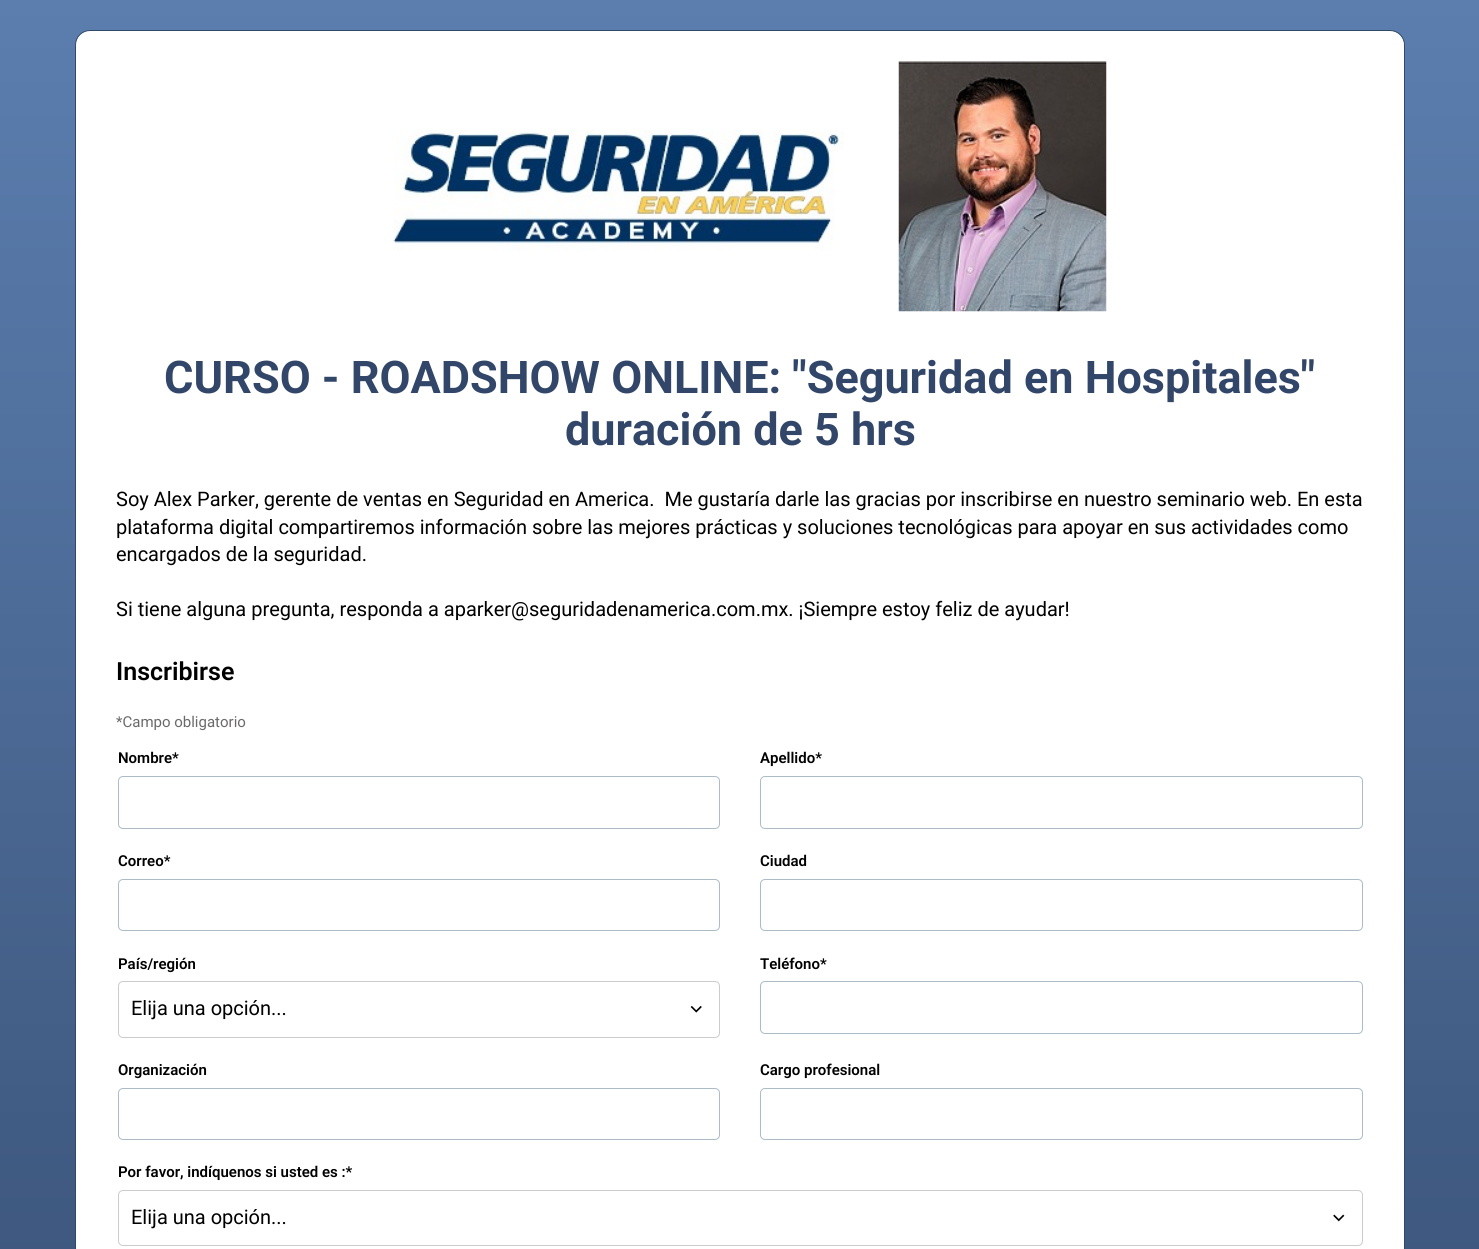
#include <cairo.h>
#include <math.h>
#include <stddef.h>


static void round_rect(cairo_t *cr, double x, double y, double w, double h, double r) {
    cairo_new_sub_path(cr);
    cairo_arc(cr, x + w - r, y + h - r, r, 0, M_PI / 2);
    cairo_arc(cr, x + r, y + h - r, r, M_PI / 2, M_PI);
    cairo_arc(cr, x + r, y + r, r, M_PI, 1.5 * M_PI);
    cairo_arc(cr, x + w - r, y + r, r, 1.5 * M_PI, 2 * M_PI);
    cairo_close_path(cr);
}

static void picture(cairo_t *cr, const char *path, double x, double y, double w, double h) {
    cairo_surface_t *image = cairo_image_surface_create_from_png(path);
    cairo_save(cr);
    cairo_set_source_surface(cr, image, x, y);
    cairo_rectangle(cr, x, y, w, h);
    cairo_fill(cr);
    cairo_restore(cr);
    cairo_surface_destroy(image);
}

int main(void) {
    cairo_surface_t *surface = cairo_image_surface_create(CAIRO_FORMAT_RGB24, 1479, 1249);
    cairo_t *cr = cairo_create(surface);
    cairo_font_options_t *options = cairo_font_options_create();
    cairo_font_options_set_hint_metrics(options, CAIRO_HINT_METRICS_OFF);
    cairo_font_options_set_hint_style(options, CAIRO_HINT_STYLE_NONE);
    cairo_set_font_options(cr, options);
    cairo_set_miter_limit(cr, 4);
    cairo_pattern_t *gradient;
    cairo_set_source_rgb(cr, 1, 1, 1);
    cairo_paint(cr);
    gradient = cairo_pattern_create_linear(740, 0, 740, 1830);
    cairo_pattern_add_color_stop_rgba(gradient, 0, 0.357, 0.494, 0.686, 1);
    cairo_pattern_add_color_stop_rgba(gradient, 1, 0.192, 0.278, 0.412, 1);
    cairo_set_source(cr, gradient);
    cairo_pattern_destroy(gradient);
    cairo_rectangle(cr, 0, 0, 1479, 1249);
    cairo_fill(cr);
    cairo_set_source_rgb(cr, 1, 1, 1);
    round_rect(cr, 75.5, 30.5, 1329, 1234, 14.5);
    cairo_fill_preserve(cr);
    cairo_set_source_rgb(cr, 0.192, 0.282, 0.408);
    cairo_set_line_width(cr, 1);
    cairo_stroke(cr);
    picture(cr, "img1.png", 393, 129, 451, 122);
    picture(cr, "img2.png", 898, 61, 209, 251);
    cairo_select_font_face(cr, "Roboto", CAIRO_FONT_SLANT_NORMAL, CAIRO_FONT_WEIGHT_BOLD);
    cairo_set_font_size(cr, 45);
    cairo_set_source_rgb(cr, 0.192, 0.275, 0.408);
    cairo_move_to(cr, 164, 393);
    cairo_show_text(cr, "CURSO - ROADSHOW ONLINE: \"Seguridad en Hospitales\"");
    cairo_move_to(cr, 565, 445);
    cairo_show_text(cr, "duración de 5 hrs");
    cairo_select_font_face(cr, "Roboto", CAIRO_FONT_SLANT_NORMAL, CAIRO_FONT_WEIGHT_NORMAL);
    cairo_set_font_size(cr, 20);
    cairo_set_source_rgb(cr, 0, 0, 0);
    cairo_move_to(cr, 116, 506);
    cairo_show_text(cr, "Soy Alex Parker, gerente de ventas en Seguridad en America.  Me gustaría darle las gracias por inscribirse en nuestro seminario web. En esta");
    cairo_move_to(cr, 116, 534);
    cairo_show_text(cr, "plataforma digital compartiremos información sobre las mejores prácticas y soluciones tecnológicas para apoyar en sus actividades como");
    cairo_move_to(cr, 116, 561);
    cairo_show_text(cr, "encargados de la seguridad.");
    cairo_move_to(cr, 116, 616);
    cairo_show_text(cr, "Si tiene alguna pregunta, responda a aparker@seguridadenamerica.com.mx. ¡Siempre estoy feliz de ayudar!");
    cairo_select_font_face(cr, "Roboto SemiBold", CAIRO_FONT_SLANT_NORMAL, CAIRO_FONT_WEIGHT_NORMAL);
    cairo_set_font_size(cr, 25);
    cairo_move_to(cr, 116, 680);
    cairo_show_text(cr, "Inscribirse");
    cairo_select_font_face(cr, "Roboto", CAIRO_FONT_SLANT_NORMAL, CAIRO_FONT_WEIGHT_NORMAL);
    cairo_set_font_size(cr, 15);
    cairo_set_source_rgb(cr, 0.42, 0.412, 0.412);
    cairo_move_to(cr, 116, 727);
    cairo_show_text(cr, "*Campo obligatorio");
    cairo_select_font_face(cr, "Roboto SemiBold", CAIRO_FONT_SLANT_NORMAL, CAIRO_FONT_WEIGHT_NORMAL);
    cairo_set_source_rgb(cr, 0, 0, 0);
    cairo_move_to(cr, 118, 763);
    cairo_show_text(cr, "Nombre*");
    round_rect(cr, 118.5, 776.5, 601, 52, 4.5);
    cairo_set_source_rgb(cr, 0.675, 0.737, 0.78);
    cairo_stroke(cr);
    cairo_set_source_rgb(cr, 0, 0, 0);
    cairo_move_to(cr, 760, 763);
    cairo_show_text(cr, "Apellido*");
    round_rect(cr, 760.5, 776.5, 602, 52, 4.5);
    cairo_set_source_rgb(cr, 0.675, 0.737, 0.78);
    cairo_stroke(cr);
    cairo_set_source_rgb(cr, 0, 0, 0);
    cairo_move_to(cr, 118, 866);
    cairo_show_text(cr, "Correo*");
    round_rect(cr, 118.5, 879.5, 601, 51, 4.5);
    cairo_set_source_rgb(cr, 0.675, 0.737, 0.78);
    cairo_stroke(cr);
    cairo_set_source_rgb(cr, 0, 0, 0);
    cairo_move_to(cr, 760, 866);
    cairo_show_text(cr, "Ciudad");
    round_rect(cr, 760.5, 879.5, 602, 51, 4.5);
    cairo_set_source_rgb(cr, 0.675, 0.737, 0.78);
    cairo_stroke(cr);
    cairo_set_source_rgb(cr, 0, 0, 0);
    cairo_move_to(cr, 118, 969);
    cairo_show_text(cr, "País/región");
    round_rect(cr, 118.5, 981.5, 601, 56, 4.5);
    cairo_set_source_rgb(cr, 0.8, 0.8, 0.8);
    cairo_stroke(cr);
    cairo_select_font_face(cr, "Roboto", CAIRO_FONT_SLANT_NORMAL, CAIRO_FONT_WEIGHT_NORMAL);
    cairo_set_font_size(cr, 20);
    cairo_set_source_rgb(cr, 0, 0, 0);
    cairo_move_to(cr, 131, 1015);
    cairo_show_text(cr, "Elija una opción...");
    picture(cr, "img3.png", 690, 1005, 12, 8);
    cairo_select_font_face(cr, "Roboto SemiBold", CAIRO_FONT_SLANT_NORMAL, CAIRO_FONT_WEIGHT_NORMAL);
    cairo_set_font_size(cr, 15);
    cairo_move_to(cr, 760, 969);
    cairo_show_text(cr, "Teléfono*");
    round_rect(cr, 760.5, 981.5, 602, 52, 4.5);
    cairo_set_source_rgb(cr, 0.675, 0.737, 0.78);
    cairo_stroke(cr);
    cairo_set_source_rgb(cr, 0, 0, 0);
    cairo_move_to(cr, 118, 1075);
    cairo_show_text(cr, "Organización");
    round_rect(cr, 118.5, 1088.5, 601, 51, 4.5);
    cairo_set_source_rgb(cr, 0.675, 0.737, 0.78);
    cairo_stroke(cr);
    cairo_set_source_rgb(cr, 0, 0, 0);
    cairo_move_to(cr, 760, 1075);
    cairo_show_text(cr, "Cargo profesional");
    round_rect(cr, 760.5, 1088.5, 602, 51, 4.5);
    cairo_set_source_rgb(cr, 0.675, 0.737, 0.78);
    cairo_stroke(cr);
    cairo_set_source_rgb(cr, 0, 0, 0);
    cairo_move_to(cr, 118, 1177);
    cairo_show_text(cr, "Por favor, indíquenos si usted es :*");
    round_rect(cr, 118.5, 1190.5, 1244, 55, 4.5);
    cairo_set_source_rgb(cr, 0.8, 0.8, 0.8);
    cairo_stroke(cr);
    cairo_select_font_face(cr, "Roboto", CAIRO_FONT_SLANT_NORMAL, CAIRO_FONT_WEIGHT_NORMAL);
    cairo_set_font_size(cr, 20);
    cairo_set_source_rgb(cr, 0, 0, 0);
    cairo_move_to(cr, 131, 1224);
    cairo_show_text(cr, "Elija una opción...");
    picture(cr, "img4.png", 1333, 1214, 12, 8);
    cairo_surface_write_to_png(surface, "page.png");
    cairo_font_options_destroy(options);
    cairo_destroy(cr);
    cairo_surface_destroy(surface);
    return 0;
}
